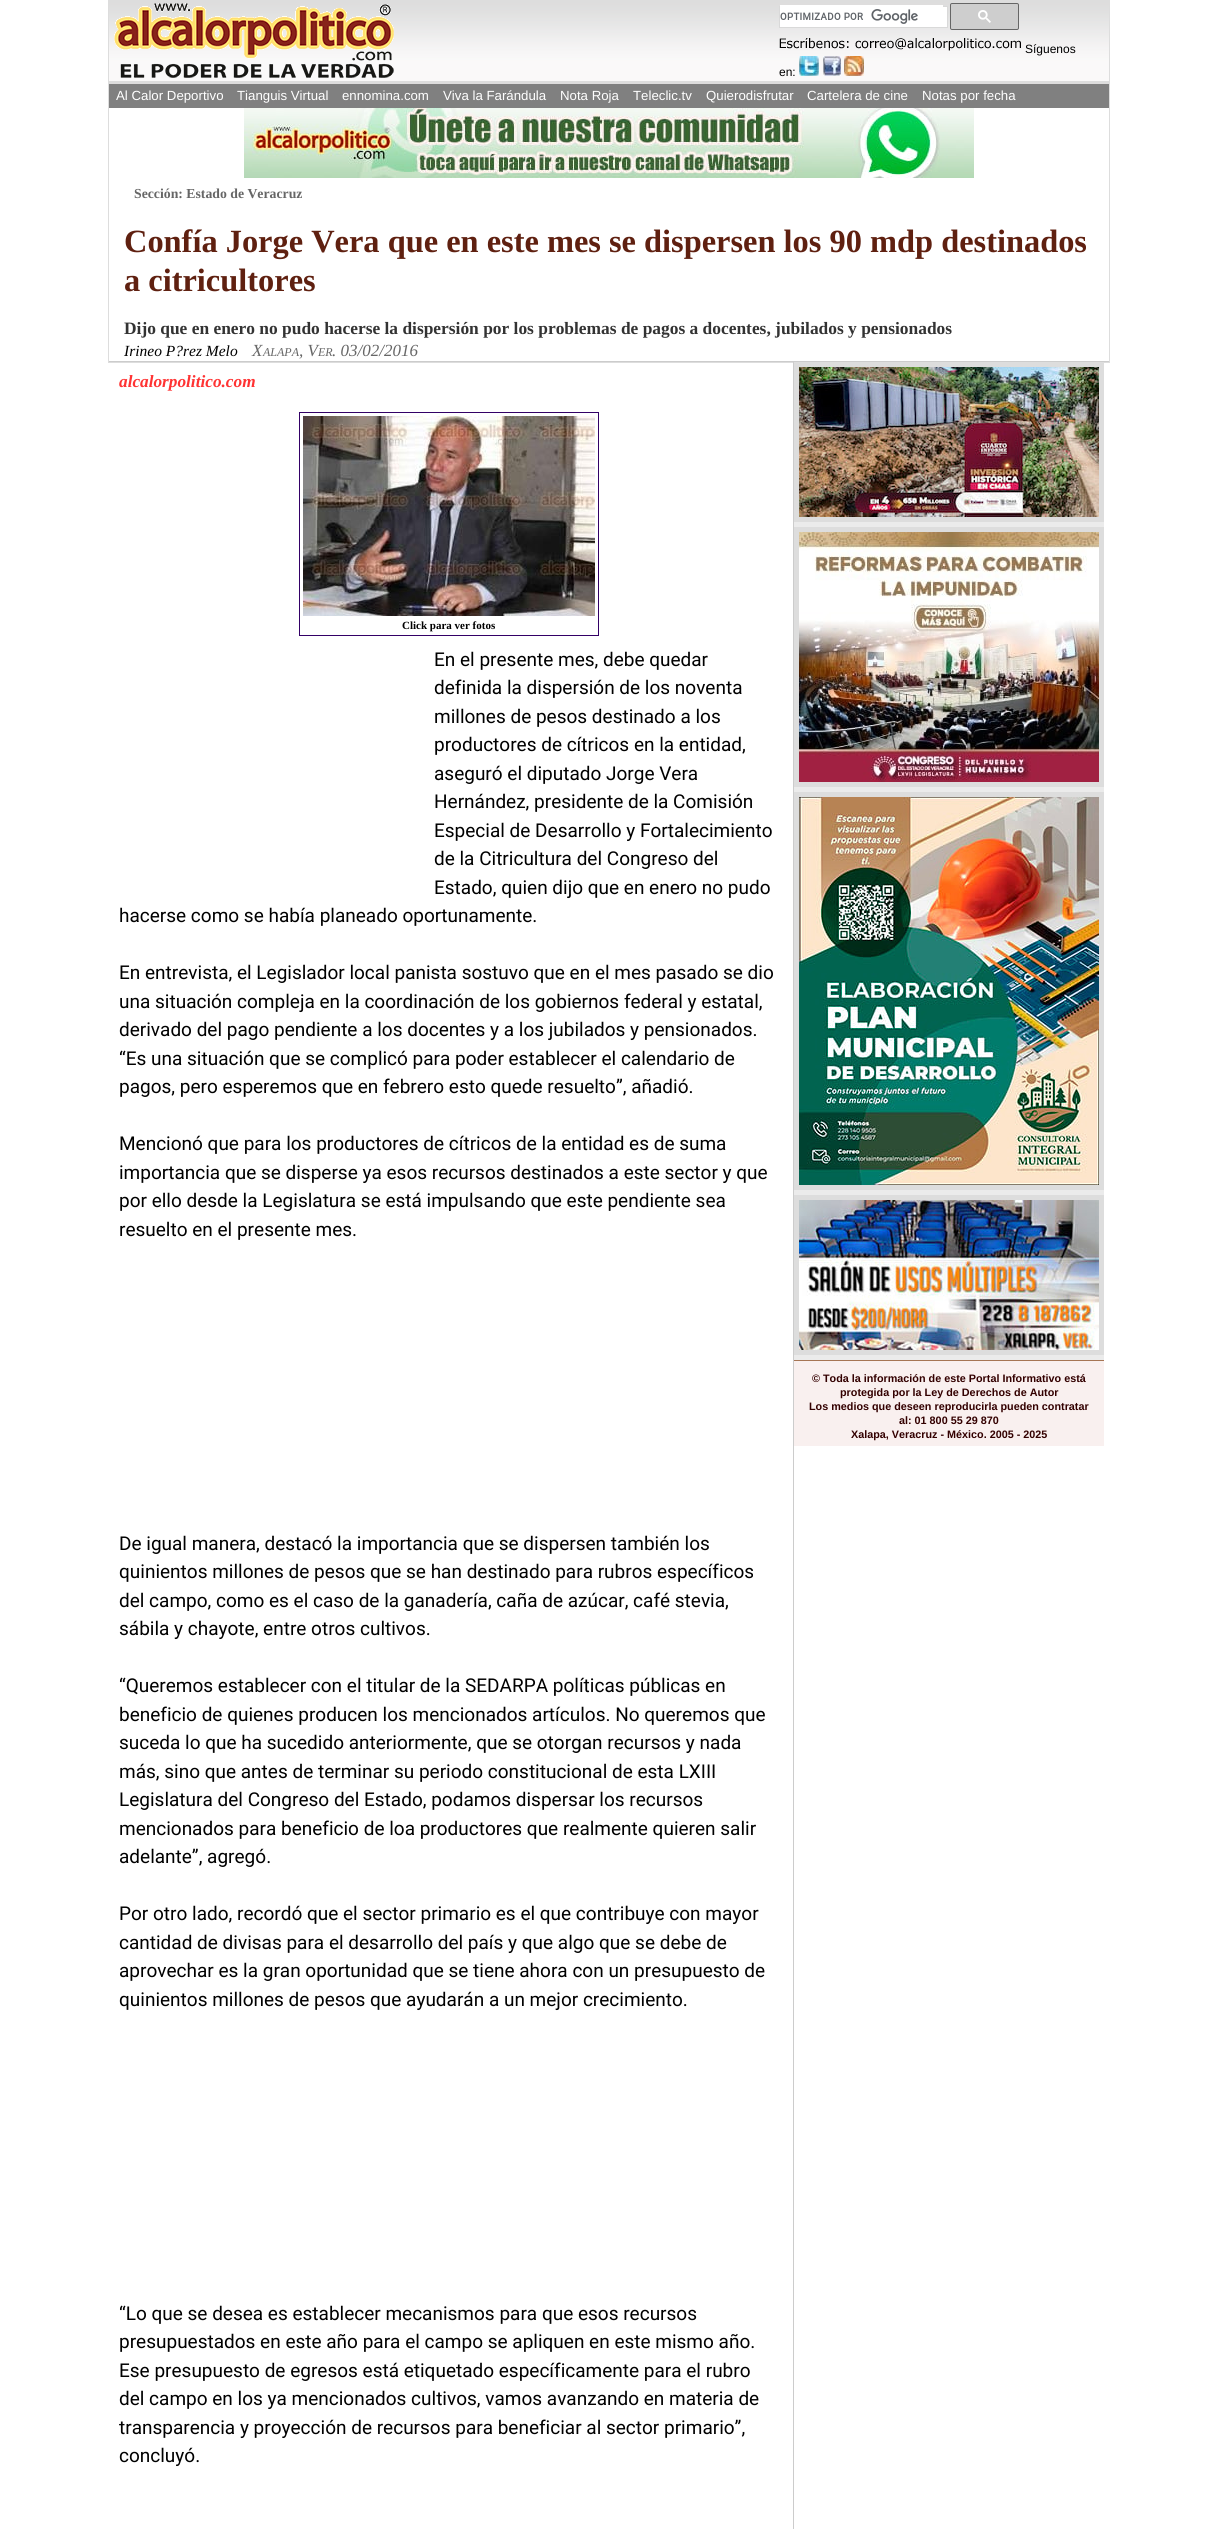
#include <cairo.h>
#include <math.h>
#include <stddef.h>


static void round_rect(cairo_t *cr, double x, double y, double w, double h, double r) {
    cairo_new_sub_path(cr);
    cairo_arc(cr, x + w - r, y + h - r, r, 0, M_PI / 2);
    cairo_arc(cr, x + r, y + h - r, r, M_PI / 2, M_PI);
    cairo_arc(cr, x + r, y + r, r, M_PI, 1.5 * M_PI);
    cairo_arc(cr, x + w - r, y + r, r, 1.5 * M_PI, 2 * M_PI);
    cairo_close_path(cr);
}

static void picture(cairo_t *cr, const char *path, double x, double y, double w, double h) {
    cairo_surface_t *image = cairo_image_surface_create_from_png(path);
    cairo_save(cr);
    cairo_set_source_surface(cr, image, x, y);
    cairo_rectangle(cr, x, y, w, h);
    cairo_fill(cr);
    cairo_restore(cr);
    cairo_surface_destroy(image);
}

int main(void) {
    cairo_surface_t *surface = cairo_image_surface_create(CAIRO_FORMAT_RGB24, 1218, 2529);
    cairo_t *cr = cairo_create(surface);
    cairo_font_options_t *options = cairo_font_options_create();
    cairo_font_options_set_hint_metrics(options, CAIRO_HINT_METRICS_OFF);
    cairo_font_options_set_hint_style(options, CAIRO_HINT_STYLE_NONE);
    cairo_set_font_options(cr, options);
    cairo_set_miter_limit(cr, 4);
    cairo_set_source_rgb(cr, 1, 1, 1);
    cairo_paint(cr);
    cairo_rectangle(cr, 108.5, 0.5, 1001, 362);
    cairo_set_source_rgb(cr, 0.867, 0.867, 0.867);
    cairo_set_line_width(cr, 1);
    cairo_stroke(cr);
    picture(cr, "img1.png", 109, 1, 1000, 83);
    picture(cr, "img2.png", 114, 3, 280, 75);
    cairo_set_source_rgb(cr, 1, 1, 1);
    cairo_rectangle(cr, 943, 7, 4, 20);
    cairo_fill(cr);
    cairo_rectangle(cr, 779.5, 6.5, 168, 21);
    cairo_set_source_rgb(cr, 0.851, 0.851, 0.851);
    cairo_stroke(cr);
    cairo_set_source_rgb(cr, 1, 1, 1);
    cairo_rectangle(cr, 780, 5, 163, 22);
    cairo_fill(cr);
    picture(cr, "img3.png", 780, 9, 138, 15);
    cairo_set_source_rgb(cr, 0.808, 0.808, 0.808);
    round_rect(cr, 950.5, 3.5, 68, 26, 1.5);
    cairo_fill_preserve(cr);
    cairo_set_source_rgb(cr, 0.4, 0.4, 0.4);
    cairo_stroke(cr);
    picture(cr, "img4.png", 978, 10, 13, 13);
    picture(cr, "img5.png", 779, 38, 242, 13);
    cairo_select_font_face(cr, "Liberation Sans", CAIRO_FONT_SLANT_NORMAL, CAIRO_FONT_WEIGHT_NORMAL);
    cairo_set_font_size(cr, 12);
    cairo_set_source_rgb(cr, 0, 0, 0);
    cairo_move_to(cr, 1025, 53);
    cairo_show_text(cr, "Síguenos");
    cairo_move_to(cr, 779, 76);
    cairo_show_text(cr, "en:");
    picture(cr, "img6.png", 799, 56, 20, 20);
    picture(cr, "img7.png", 823, 56, 18, 20);
    picture(cr, "img8.png", 844, 56, 20, 20);
    cairo_set_source_rgb(cr, 0.502, 0.502, 0.502);
    cairo_rectangle(cr, 109, 84, 1000, 24);
    cairo_fill(cr);
    cairo_set_font_size(cr, 13.25);
    cairo_set_source_rgb(cr, 1, 1, 1);
    cairo_move_to(cr, 116, 100);
    cairo_show_text(cr, "Al Calor Deportivo");
    cairo_move_to(cr, 237, 100);
    cairo_show_text(cr, "Tianguis Virtual");
    cairo_move_to(cr, 342, 100);
    cairo_show_text(cr, "ennomina.com");
    cairo_move_to(cr, 443, 100);
    cairo_show_text(cr, "Viva la Farándula");
    cairo_move_to(cr, 560, 100);
    cairo_show_text(cr, "Nota Roja");
    cairo_move_to(cr, 633, 100);
    cairo_show_text(cr, "Teleclic.tv");
    cairo_move_to(cr, 706, 100);
    cairo_show_text(cr, "Quierodisfrutar");
    cairo_move_to(cr, 807, 100);
    cairo_show_text(cr, "Cartelera de cine");
    cairo_move_to(cr, 922, 100);
    cairo_show_text(cr, "Notas por fecha");
    picture(cr, "img9.png", 244, 108, 730, 70);
    cairo_set_source_rgb(cr, 0.8, 0.8, 0.8);
    cairo_rectangle(cr, 109, 361, 1000, 1);
    cairo_fill(cr);
    cairo_select_font_face(cr, "Liberation Serif", CAIRO_FONT_SLANT_NORMAL, CAIRO_FONT_WEIGHT_BOLD);
    cairo_set_font_size(cr, 13.75);
    cairo_set_source_rgb(cr, 0.4, 0.4, 0.4);
    cairo_move_to(cr, 134, 198);
    cairo_show_text(cr, "Sección: Estado de Veracruz");
    cairo_set_font_size(cr, 32.4);
    cairo_set_source_rgb(cr, 0.373, 0.125, 0.063);
    cairo_move_to(cr, 124, 252);
    cairo_show_text(cr, "Confía Jorge Vera que en este mes se dispersen los 90 mdp destinados");
    cairo_move_to(cr, 124, 291);
    cairo_show_text(cr, "a citricultores");
    cairo_set_font_size(cr, 17.4);
    cairo_set_source_rgb(cr, 0.2, 0.2, 0.2);
    cairo_move_to(cr, 124, 334);
    cairo_show_text(cr, "Dijo que en enero no pudo hacerse la dispersión por los problemas de pagos a docentes, jubilados y pensionados");
    cairo_select_font_face(cr, "Liberation Serif", CAIRO_FONT_SLANT_ITALIC, CAIRO_FONT_WEIGHT_NORMAL);
    cairo_set_font_size(cr, 15.5);
    cairo_set_source_rgb(cr, 0, 0, 0);
    cairo_move_to(cr, 124, 356);
    cairo_show_text(cr, "Irineo P?rez Melo");
    cairo_set_font_size(cr, 17);
    cairo_set_source_rgb(cr, 0.4, 0.4, 0.4);
    cairo_move_to(cr, 252, 356);
    cairo_show_text(cr, "X");
    cairo_set_font_size(cr, 12);
    cairo_move_to(cr, 263, 356);
    cairo_show_text(cr, "ALAPA");
    cairo_set_font_size(cr, 17);
    cairo_move_to(cr, 299, 356);
    cairo_show_text(cr, ", V");
    cairo_set_font_size(cr, 12);
    cairo_move_to(cr, 318, 356);
    cairo_show_text(cr, "ER");
    cairo_set_font_size(cr, 17);
    cairo_move_to(cr, 332, 356);
    cairo_show_text(cr, ". 03/02/2016");
    cairo_set_source_rgb(cr, 0.8, 0.8, 0.8);
    cairo_rectangle(cr, 793, 362, 1, 2167);
    cairo_fill(cr);
    cairo_select_font_face(cr, "Liberation Serif", CAIRO_FONT_SLANT_ITALIC, CAIRO_FONT_WEIGHT_BOLD);
    cairo_set_font_size(cr, 17.25);
    cairo_set_source_rgb(cr, 1, 0.2, 0.2);
    cairo_move_to(cr, 119, 387);
    cairo_show_text(cr, "alcalorpolitico.com");
    cairo_rectangle(cr, 299.5, 412.5, 299, 223);
    cairo_set_source_rgb(cr, 0.2, 0, 0.4);
    cairo_stroke(cr);
    picture(cr, "img10.png", 303, 416, 292, 200);
    cairo_select_font_face(cr, "Liberation Serif", CAIRO_FONT_SLANT_NORMAL, CAIRO_FONT_WEIGHT_BOLD);
    cairo_set_font_size(cr, 11);
    cairo_set_source_rgb(cr, 0, 0, 0);
    cairo_move_to(cr, 402, 629);
    cairo_show_text(cr, "Click para ver fotos");
    cairo_select_font_face(cr, "Roboto", CAIRO_FONT_SLANT_NORMAL, CAIRO_FONT_WEIGHT_NORMAL);
    cairo_set_font_size(cr, 19);
    cairo_move_to(cr, 434, 666);
    cairo_show_text(cr, "En el presente mes, debe quedar");
    cairo_move_to(cr, 434, 694);
    cairo_show_text(cr, "definida la dispersión de los noventa");
    cairo_move_to(cr, 434, 723);
    cairo_show_text(cr, "millones de pesos destinado a los");
    cairo_move_to(cr, 434, 751);
    cairo_show_text(cr, "productores de cítricos en la entidad,");
    cairo_move_to(cr, 434, 780);
    cairo_show_text(cr, "aseguró el diputado Jorge Vera");
    cairo_move_to(cr, 434, 808);
    cairo_show_text(cr, "Hernández, presidente de la Comisión");
    cairo_move_to(cr, 434, 837);
    cairo_show_text(cr, "Especial de Desarrollo y Fortalecimiento");
    cairo_move_to(cr, 434, 865);
    cairo_show_text(cr, "de la Citricultura del Congreso del");
    cairo_move_to(cr, 434, 894);
    cairo_show_text(cr, "Estado, quien dijo que en enero no pudo");
    cairo_move_to(cr, 119, 922);
    cairo_show_text(cr, "hacerse como se había planeado oportunamente.");
    cairo_move_to(cr, 119, 979);
    cairo_show_text(cr, "En entrevista, el Legislador local panista sostuvo que en el mes pasado se dio");
    cairo_move_to(cr, 119, 1008);
    cairo_show_text(cr, "una situación compleja en la coordinación de los gobiernos federal y estatal,");
    cairo_move_to(cr, 119, 1036);
    cairo_show_text(cr, "derivado del pago pendiente a los docentes y a los jubilados y pensionados.");
    cairo_move_to(cr, 119, 1065);
    cairo_show_text(cr, "“Es una situación que se complicó para poder establecer el calendario de");
    cairo_move_to(cr, 119, 1093);
    cairo_show_text(cr, "pagos, pero esperemos que en febrero esto quede resuelto”, añadió.");
    cairo_move_to(cr, 119, 1150);
    cairo_show_text(cr, "Mencionó que para los productores de cítricos de la entidad es de suma");
    cairo_move_to(cr, 119, 1179);
    cairo_show_text(cr, "importancia que se disperse ya esos recursos destinados a este sector y que");
    cairo_move_to(cr, 119, 1207);
    cairo_show_text(cr, "por ello desde la Legislatura se está impulsando que este pendiente sea");
    cairo_move_to(cr, 119, 1236);
    cairo_show_text(cr, "resuelto en el presente mes.");
    cairo_move_to(cr, 119, 1550);
    cairo_show_text(cr, "De igual manera, destacó la importancia que se dispersen también los");
    cairo_move_to(cr, 119, 1578);
    cairo_show_text(cr, "quinientos millones de pesos que se han destinado para rubros específicos");
    cairo_move_to(cr, 119, 1607);
    cairo_show_text(cr, "del campo, como es el caso de la ganadería, caña de azúcar, café stevia,");
    cairo_move_to(cr, 119, 1635);
    cairo_show_text(cr, "sábila y chayote, entre otros cultivos.");
    cairo_move_to(cr, 119, 1692);
    cairo_show_text(cr, "“Queremos establecer con el titular de la SEDARPA políticas públicas en");
    cairo_move_to(cr, 119, 1721);
    cairo_show_text(cr, "beneficio de quienes producen los mencionados artículos. No queremos que");
    cairo_move_to(cr, 119, 1749);
    cairo_show_text(cr, "suceda lo que ha sucedido anteriormente, que se otorgan recursos y nada");
    cairo_move_to(cr, 119, 1778);
    cairo_show_text(cr, "más, sino que antes de terminar su periodo constitucional de esta LXIII");
    cairo_move_to(cr, 119, 1806);
    cairo_show_text(cr, "Legislatura del Congreso del Estado, podamos dispersar los recursos");
    cairo_move_to(cr, 119, 1835);
    cairo_show_text(cr, "mencionados para beneficio de loa productores que realmente quieren salir");
    cairo_move_to(cr, 119, 1863);
    cairo_show_text(cr, "adelante”, agregó.");
    cairo_move_to(cr, 119, 1920);
    cairo_show_text(cr, "Por otro lado, recordó que el sector primario es el que contribuye con mayor");
    cairo_move_to(cr, 119, 1949);
    cairo_show_text(cr, "cantidad de divisas para el desarrollo del país y que algo que se debe de");
    cairo_move_to(cr, 119, 1977);
    cairo_show_text(cr, "aprovechar es la gran oportunidad que se tiene ahora con un presupuesto de");
    cairo_move_to(cr, 119, 2006);
    cairo_show_text(cr, "quinientos millones de pesos que ayudarán a un mejor crecimiento.");
    cairo_move_to(cr, 119, 2320);
    cairo_show_text(cr, "“Lo que se desea es establecer mecanismos para que esos recursos");
    cairo_move_to(cr, 119, 2348);
    cairo_show_text(cr, "presupuestados en este año para el campo se apliquen en este mismo año.");
    cairo_move_to(cr, 119, 2377);
    cairo_show_text(cr, "Ese presupuesto de egresos está etiquetado específicamente para el rubro");
    cairo_move_to(cr, 119, 2405);
    cairo_show_text(cr, "del campo en los ya mencionados cultivos, vamos avanzando en materia de");
    cairo_move_to(cr, 119, 2434);
    cairo_show_text(cr, "transparencia y proyección de recursos para beneficiar al sector primario”,");
    cairo_move_to(cr, 119, 2462);
    cairo_show_text(cr, "concluyó.");
    cairo_set_source_rgb(cr, 0.918, 0.918, 0.918);
    cairo_rectangle(cr, 794, 522, 310, 838);
    cairo_fill(cr);
    cairo_rectangle(cr, 796.5, 364.5, 305, 155);
    cairo_set_source_rgb(cr, 0.867, 0.867, 0.867);
    cairo_set_line_width(cr, 5);
    cairo_stroke(cr);
    picture(cr, "img11.png", 799, 367, 300, 150);
    cairo_rectangle(cr, 796.5, 529.5, 305, 255);
    cairo_stroke(cr);
    picture(cr, "img12.png", 799, 532, 300, 250);
    cairo_rectangle(cr, 796.5, 794.5, 305, 393);
    cairo_stroke(cr);
    picture(cr, "img13.png", 799, 797, 300, 388);
    cairo_rectangle(cr, 796.5, 1197.5, 305, 155);
    cairo_stroke(cr);
    picture(cr, "img14.png", 799, 1200, 300, 150);
    cairo_set_source_rgb(cr, 0.973, 0.941, 0.937);
    cairo_rectangle(cr, 794, 1361, 310, 85);
    cairo_fill(cr);
    cairo_set_source_rgb(cr, 0.651, 0.459, 0.329);
    cairo_rectangle(cr, 794, 1360, 310, 1);
    cairo_fill(cr);
    cairo_select_font_face(cr, "Liberation Sans", CAIRO_FONT_SLANT_NORMAL, CAIRO_FONT_WEIGHT_BOLD);
    cairo_set_font_size(cr, 10.8);
    cairo_set_source_rgb(cr, 0.2, 0, 0);
    cairo_move_to(cr, 812, 1382);
    cairo_show_text(cr, "© Toda la información de este Portal Informativo está");
    cairo_move_to(cr, 840, 1396);
    cairo_show_text(cr, "protegida por la Ley de Derechos de Autor");
    cairo_move_to(cr, 809, 1410);
    cairo_show_text(cr, "Los medios que deseen reproducirla pueden contratar");
    cairo_move_to(cr, 899, 1424);
    cairo_show_text(cr, "al: 01 800 55 29 870");
    cairo_move_to(cr, 851, 1438);
    cairo_show_text(cr, "Xalapa, Veracruz - México. 2005 - 2025");
    cairo_surface_write_to_png(surface, "page.png");
    cairo_font_options_destroy(options);
    cairo_destroy(cr);
    cairo_surface_destroy(surface);
    return 0;
}
